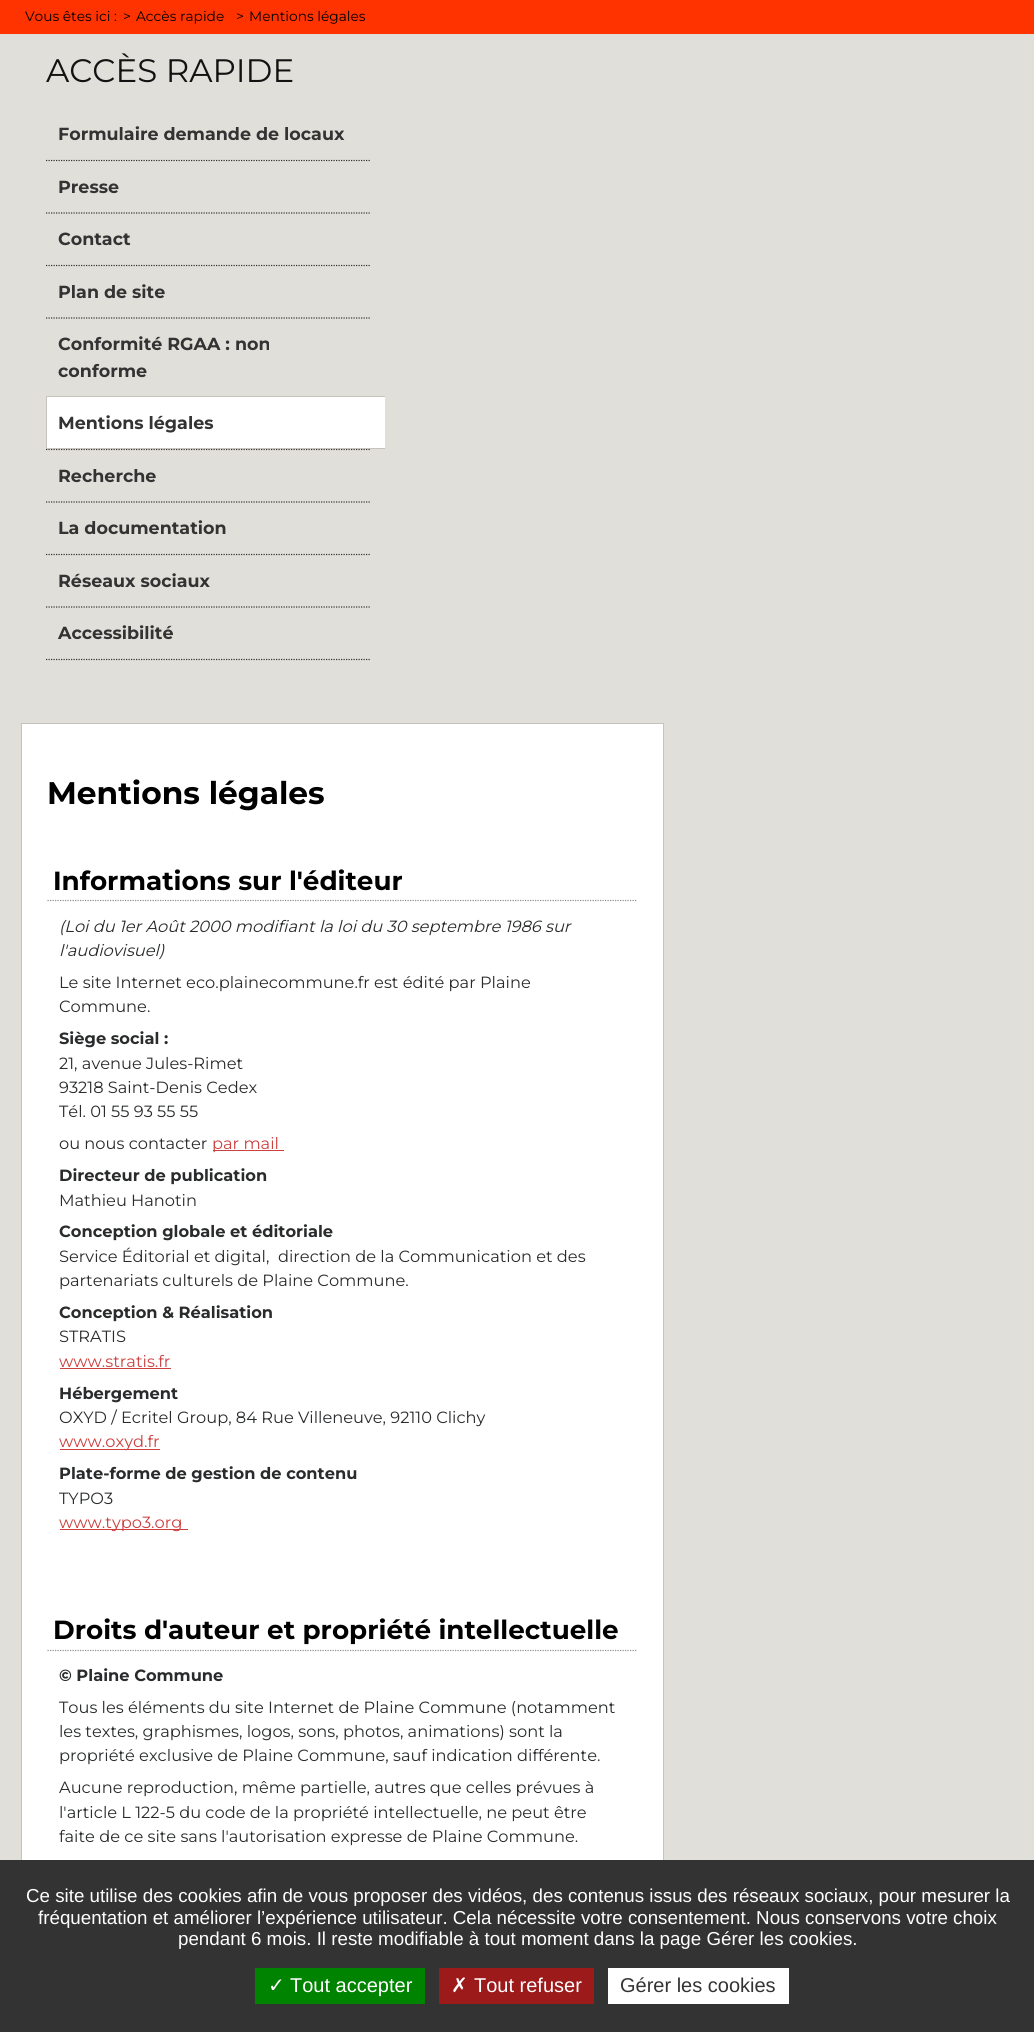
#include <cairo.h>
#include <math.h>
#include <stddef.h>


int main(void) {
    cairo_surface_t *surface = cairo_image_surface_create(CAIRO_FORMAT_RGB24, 1034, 2032);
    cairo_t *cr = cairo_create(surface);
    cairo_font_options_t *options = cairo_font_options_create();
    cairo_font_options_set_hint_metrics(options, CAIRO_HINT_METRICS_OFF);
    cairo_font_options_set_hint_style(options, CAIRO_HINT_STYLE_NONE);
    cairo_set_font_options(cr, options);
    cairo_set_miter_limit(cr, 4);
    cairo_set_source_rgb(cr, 1, 0.2, 0);
    cairo_paint(cr);
    cairo_select_font_face(cr, "Montserrat Thin", CAIRO_FONT_SLANT_NORMAL, CAIRO_FONT_WEIGHT_NORMAL);
    cairo_set_font_size(cr, 13.75);
    cairo_set_source_rgb(cr, 0, 0, 0);
    cairo_move_to(cr, 25, 21);
    cairo_show_text(cr, "Vous êtes ici :");
    cairo_move_to(cr, 123, 21);
    cairo_show_text(cr, ">");
    cairo_move_to(cr, 136, 21);
    cairo_show_text(cr, "Accès rapide");
    cairo_move_to(cr, 236, 21);
    cairo_show_text(cr, ">");
    cairo_move_to(cr, 249, 21);
    cairo_show_text(cr, "Mentions légales");
    cairo_set_source_rgb(cr, 0.882, 0.875, 0.851);
    cairo_rectangle(cr, 0, 34, 1034, 1826);
    cairo_fill(cr);
    cairo_set_font_size(cr, 32.5);
    cairo_set_source_rgb(cr, 0.071, 0.071, 0.071);
    cairo_move_to(cr, 46, 82);
    cairo_show_text(cr, "ACCÈS RAPIDE");
    cairo_new_path(cr);
    cairo_move_to(cr, 46, 160.5);
    cairo_line_to(cr, 371, 160.5);
    cairo_set_source_rgb(cr, 0.2, 0.2, 0.2);
    cairo_set_line_width(cr, 1.2);
    cairo_set_dash(cr, (double[]){1.25, 1.25}, 2, 0);
    cairo_stroke(cr);
    cairo_select_font_face(cr, "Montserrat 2 Thin", CAIRO_FONT_SLANT_NORMAL, CAIRO_FONT_WEIGHT_NORMAL);
    cairo_set_font_size(cr, 17.5);
    cairo_move_to(cr, 58, 140);
    cairo_show_text(cr, "Formulaire demande de locaux");
    cairo_new_path(cr);
    cairo_move_to(cr, 46, 213);
    cairo_line_to(cr, 371, 213);
    cairo_stroke(cr);
    cairo_move_to(cr, 58, 193);
    cairo_show_text(cr, "Presse");
    cairo_new_path(cr);
    cairo_move_to(cr, 46, 265.5);
    cairo_line_to(cr, 371, 265.5);
    cairo_stroke(cr);
    cairo_move_to(cr, 58, 245);
    cairo_show_text(cr, "Contact");
    cairo_new_path(cr);
    cairo_move_to(cr, 46, 318);
    cairo_line_to(cr, 371, 318);
    cairo_stroke(cr);
    cairo_move_to(cr, 58, 298);
    cairo_show_text(cr, "Plan de site");
    cairo_move_to(cr, 58, 350);
    cairo_show_text(cr, "Conformité RGAA : non");
    cairo_move_to(cr, 58, 377);
    cairo_show_text(cr, "conforme");
    cairo_new_path(cr);
    cairo_move_to(cr, 46, 449.5);
    cairo_line_to(cr, 371, 449.5);
    cairo_stroke(cr);
    cairo_set_source_rgb(cr, 1, 1, 1);
    cairo_rectangle(cr, 47, 397, 338, 51);
    cairo_fill(cr);
    cairo_set_source_rgb(cr, 0.78, 0.761, 0.737);
    cairo_rectangle(cr, 46, 396, 339, 1);
    cairo_fill(cr);
    cairo_rectangle(cr, 46, 448, 339, 1);
    cairo_fill(cr);
    cairo_rectangle(cr, 46, 396, 1, 53);
    cairo_fill(cr);
    cairo_set_source_rgb(cr, 0.2, 0.2, 0.2);
    cairo_move_to(cr, 58, 429);
    cairo_show_text(cr, "Mentions légales");
    cairo_new_path(cr);
    cairo_move_to(cr, 46, 502);
    cairo_line_to(cr, 371, 502);
    cairo_stroke(cr);
    cairo_move_to(cr, 58, 482);
    cairo_show_text(cr, "Recherche");
    cairo_new_path(cr);
    cairo_move_to(cr, 46, 554.5);
    cairo_line_to(cr, 371, 554.5);
    cairo_stroke(cr);
    cairo_move_to(cr, 58, 534);
    cairo_show_text(cr, "La documentation");
    cairo_new_path(cr);
    cairo_move_to(cr, 46, 607);
    cairo_line_to(cr, 371, 607);
    cairo_stroke(cr);
    cairo_move_to(cr, 58, 587);
    cairo_show_text(cr, "Réseaux sociaux");
    cairo_new_path(cr);
    cairo_move_to(cr, 46, 659.5);
    cairo_line_to(cr, 371, 659.5);
    cairo_stroke(cr);
    cairo_move_to(cr, 58, 639);
    cairo_show_text(cr, "Accessibilité");
    cairo_set_source_rgb(cr, 1, 1, 1);
    cairo_rectangle(cr, 22, 724, 641, 1136);
    cairo_fill(cr);
    cairo_rectangle(cr, 21.5, 723.5, 642, 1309);
    cairo_set_source_rgb(cr, 0.78, 0.761, 0.737);
    cairo_set_line_width(cr, 1);
    cairo_set_dash(cr, NULL, 0, 0);
    cairo_stroke(cr);
    cairo_set_font_size(cr, 31.25);
    cairo_set_source_rgb(cr, 0, 0, 0);
    cairo_move_to(cr, 47, 804);
    cairo_show_text(cr, "Mentions légales");
    cairo_new_path(cr);
    cairo_move_to(cr, 47.5, 900.5);
    cairo_line_to(cr, 637.5, 900.5);
    cairo_set_source_rgb(cr, 0.565, 0.561, 0.561);
    cairo_set_line_width(cr, 1.2);
    cairo_set_dash(cr, (double[]){1.25, 1.25}, 2, 0);
    cairo_stroke(cr);
    cairo_set_font_size(cr, 26.25);
    cairo_set_source_rgb(cr, 0, 0, 0);
    cairo_move_to(cr, 53, 890);
    cairo_show_text(cr, "Informations sur l'éditeur");
    cairo_select_font_face(cr, "Montserrat Thin", CAIRO_FONT_SLANT_ITALIC, CAIRO_FONT_WEIGHT_NORMAL);
    cairo_set_font_size(cr, 16.25);
    cairo_set_source_rgb(cr, 0.161, 0.169, 0.173);
    cairo_move_to(cr, 59, 932);
    cairo_show_text(cr, "(Loi du 1er Août 2000 modifiant la loi du 30 septembre 1986 sur");
    cairo_move_to(cr, 59, 956);
    cairo_show_text(cr, "l'audiovisuel)");
    cairo_select_font_face(cr, "Montserrat Thin", CAIRO_FONT_SLANT_NORMAL, CAIRO_FONT_WEIGHT_NORMAL);
    cairo_move_to(cr, 59, 988);
    cairo_show_text(cr, "Le site Internet eco.plainecommune.fr est édité par Plaine");
    cairo_move_to(cr, 59, 1012);
    cairo_show_text(cr, "Commune.");
    cairo_select_font_face(cr, "Montserrat 2 Thin", CAIRO_FONT_SLANT_NORMAL, CAIRO_FONT_WEIGHT_NORMAL);
    cairo_move_to(cr, 59, 1044);
    cairo_show_text(cr, "Siège social :");
    cairo_select_font_face(cr, "Montserrat Thin", CAIRO_FONT_SLANT_NORMAL, CAIRO_FONT_WEIGHT_NORMAL);
    cairo_move_to(cr, 59, 1069);
    cairo_show_text(cr, "21, avenue Jules-Rimet");
    cairo_move_to(cr, 59, 1093);
    cairo_show_text(cr, "93218 Saint-Denis Cedex");
    cairo_move_to(cr, 59, 1117);
    cairo_show_text(cr, "Tél. 01 55 93 55 55");
    cairo_move_to(cr, 59, 1149);
    cairo_show_text(cr, "ou nous contacter");
    cairo_set_source_rgb(cr, 0.8, 0.251, 0.247);
    cairo_rectangle(cr, 213, 1150, 71, 1);
    cairo_fill(cr);
    cairo_move_to(cr, 212, 1149);
    cairo_show_text(cr, "par mail");
    cairo_select_font_face(cr, "Montserrat 2 Thin", CAIRO_FONT_SLANT_NORMAL, CAIRO_FONT_WEIGHT_NORMAL);
    cairo_set_source_rgb(cr, 0.161, 0.169, 0.173);
    cairo_move_to(cr, 59, 1181);
    cairo_show_text(cr, "Directeur de publication");
    cairo_select_font_face(cr, "Montserrat Thin", CAIRO_FONT_SLANT_NORMAL, CAIRO_FONT_WEIGHT_NORMAL);
    cairo_move_to(cr, 59, 1206);
    cairo_show_text(cr, "Mathieu Hanotin");
    cairo_select_font_face(cr, "Montserrat 2 Thin", CAIRO_FONT_SLANT_NORMAL, CAIRO_FONT_WEIGHT_NORMAL);
    cairo_move_to(cr, 59, 1237);
    cairo_show_text(cr, "Conception globale et éditoriale");
    cairo_select_font_face(cr, "Montserrat Thin", CAIRO_FONT_SLANT_NORMAL, CAIRO_FONT_WEIGHT_NORMAL);
    cairo_move_to(cr, 59, 1262);
    cairo_show_text(cr, "Service Éditorial et digital,  direction de la Communication et des");
    cairo_move_to(cr, 59, 1286);
    cairo_show_text(cr, "partenariats culturels de Plaine Commune.");
    cairo_select_font_face(cr, "Montserrat 2 Thin", CAIRO_FONT_SLANT_NORMAL, CAIRO_FONT_WEIGHT_NORMAL);
    cairo_move_to(cr, 59, 1318);
    cairo_show_text(cr, "Conception & Réalisation");
    cairo_select_font_face(cr, "Montserrat Thin", CAIRO_FONT_SLANT_NORMAL, CAIRO_FONT_WEIGHT_NORMAL);
    cairo_move_to(cr, 59, 1342);
    cairo_show_text(cr, "STRATIS");
    cairo_set_source_rgb(cr, 0.8, 0.251, 0.247);
    cairo_move_to(cr, 59, 1367);
    cairo_show_text(cr, "www.stratis.fr");
    cairo_rectangle(cr, 60, 1368, 111, 1);
    cairo_fill(cr);
    cairo_select_font_face(cr, "Montserrat 2 Thin", CAIRO_FONT_SLANT_NORMAL, CAIRO_FONT_WEIGHT_NORMAL);
    cairo_set_source_rgb(cr, 0.161, 0.169, 0.173);
    cairo_move_to(cr, 59, 1399);
    cairo_show_text(cr, "Hébergement");
    cairo_select_font_face(cr, "Montserrat Thin", CAIRO_FONT_SLANT_NORMAL, CAIRO_FONT_WEIGHT_NORMAL);
    cairo_move_to(cr, 59, 1423);
    cairo_show_text(cr, "OXYD / Ecritel Group, 84 Rue Villeneuve, 92110 Clichy");
    cairo_set_source_rgb(cr, 0.8, 0.251, 0.247);
    cairo_rectangle(cr, 60, 1449, 100, 1);
    cairo_fill(cr);
    cairo_move_to(cr, 59, 1447);
    cairo_show_text(cr, "www.oxyd.fr");
    cairo_select_font_face(cr, "Montserrat 2 Thin", CAIRO_FONT_SLANT_NORMAL, CAIRO_FONT_WEIGHT_NORMAL);
    cairo_set_source_rgb(cr, 0.161, 0.169, 0.173);
    cairo_move_to(cr, 59, 1479);
    cairo_show_text(cr, "Plate-forme de gestion de contenu");
    cairo_select_font_face(cr, "Montserrat Thin", CAIRO_FONT_SLANT_NORMAL, CAIRO_FONT_WEIGHT_NORMAL);
    cairo_move_to(cr, 59, 1504);
    cairo_show_text(cr, "TYPO3");
    cairo_set_source_rgb(cr, 0.8, 0.251, 0.247);
    cairo_rectangle(cr, 60, 1529, 128, 1);
    cairo_fill(cr);
    cairo_move_to(cr, 59, 1528);
    cairo_show_text(cr, "www.typo3.org");
    cairo_new_path(cr);
    cairo_move_to(cr, 47.5, 1650.5);
    cairo_line_to(cr, 637.5, 1650.5);
    cairo_set_source_rgb(cr, 0.565, 0.561, 0.561);
    cairo_stroke(cr);
    cairo_select_font_face(cr, "Montserrat 2 Thin", CAIRO_FONT_SLANT_NORMAL, CAIRO_FONT_WEIGHT_NORMAL);
    cairo_set_font_size(cr, 26.25);
    cairo_set_source_rgb(cr, 0, 0, 0);
    cairo_move_to(cr, 53, 1639);
    cairo_show_text(cr, "Droits d'auteur et propriété intellectuelle");
    cairo_set_font_size(cr, 16.25);
    cairo_set_source_rgb(cr, 0.161, 0.169, 0.173);
    cairo_move_to(cr, 59, 1681);
    cairo_show_text(cr, "© Plaine Commune");
    cairo_select_font_face(cr, "Montserrat Thin", CAIRO_FONT_SLANT_NORMAL, CAIRO_FONT_WEIGHT_NORMAL);
    cairo_move_to(cr, 59, 1713);
    cairo_show_text(cr, "Tous les éléments du site Internet de Plaine Commune (notamment");
    cairo_move_to(cr, 59, 1737);
    cairo_show_text(cr, "les textes, graphismes, logos, sons, photos, animations) sont la");
    cairo_move_to(cr, 59, 1761);
    cairo_show_text(cr, "propriété exclusive de Plaine Commune, sauf indication différente.");
    cairo_move_to(cr, 59, 1793);
    cairo_show_text(cr, "Aucune reproduction, même partielle, autres que celles prévues à");
    cairo_move_to(cr, 59, 1818);
    cairo_show_text(cr, "l'article L 122-5 du code de la propriété intellectuelle, ne peut être");
    cairo_move_to(cr, 59, 1842);
    cairo_show_text(cr, "faite de ce site sans l'autorisation expresse de Plaine Commune.");
    cairo_set_source_rgb(cr, 0.2, 0.2, 0.2);
    cairo_rectangle(cr, 0, 1860, 1034, 172);
    cairo_fill(cr);
    cairo_select_font_face(cr, "Liberation Sans", CAIRO_FONT_SLANT_NORMAL, CAIRO_FONT_WEIGHT_NORMAL);
    cairo_set_font_size(cr, 18.75);
    cairo_set_source_rgb(cr, 1, 1, 1);
    cairo_move_to(cr, 26, 1902);
    cairo_show_text(cr, "Ce site utilise des cookies afin de vous proposer des vidéos, des contenus issus des réseaux sociaux, pour mesurer la");
    cairo_move_to(cr, 38, 1924);
    cairo_show_text(cr, "fréquentation et améliorer l’expérience utilisateur. Cela nécessite votre consentement. Nous conservons votre choix");
    cairo_move_to(cr, 178, 1945);
    cairo_show_text(cr, "pendant 6 mois. Il reste modifiable à tout moment dans la page Gérer les cookies.");
    cairo_set_source_rgb(cr, 0, 0.514, 0);
    cairo_rectangle(cr, 255, 1968, 170, 36);
    cairo_fill(cr);
    cairo_select_font_face(cr, "DejaVu Sans", CAIRO_FONT_SLANT_NORMAL, CAIRO_FONT_WEIGHT_NORMAL);
    cairo_set_font_size(cr, 20);
    cairo_set_source_rgb(cr, 1, 1, 1);
    cairo_move_to(cr, 268, 1992);
    cairo_show_text(cr, "✓");
    cairo_select_font_face(cr, "Liberation Sans", CAIRO_FONT_SLANT_NORMAL, CAIRO_FONT_WEIGHT_NORMAL);
    cairo_move_to(cr, 290, 1992);
    cairo_show_text(cr, "Tout accepter");
    cairo_set_source_rgb(cr, 0.612, 0.102, 0.102);
    cairo_rectangle(cr, 439, 1968, 155, 36);
    cairo_fill(cr);
    cairo_select_font_face(cr, "DejaVu Sans", CAIRO_FONT_SLANT_NORMAL, CAIRO_FONT_WEIGHT_NORMAL);
    cairo_set_source_rgb(cr, 1, 1, 1);
    cairo_move_to(cr, 451, 1992);
    cairo_show_text(cr, "✗");
    cairo_select_font_face(cr, "Liberation Sans", CAIRO_FONT_SLANT_NORMAL, CAIRO_FONT_WEIGHT_NORMAL);
    cairo_move_to(cr, 474, 1992);
    cairo_show_text(cr, "Tout refuser");
    cairo_rectangle(cr, 608, 1968, 181, 36);
    cairo_fill(cr);
    cairo_set_source_rgb(cr, 0.2, 0.2, 0.2);
    cairo_move_to(cr, 620, 1992);
    cairo_show_text(cr, "Gérer les cookies");
    cairo_surface_write_to_png(surface, "page.png");
    cairo_font_options_destroy(options);
    cairo_destroy(cr);
    cairo_surface_destroy(surface);
    return 0;
}
